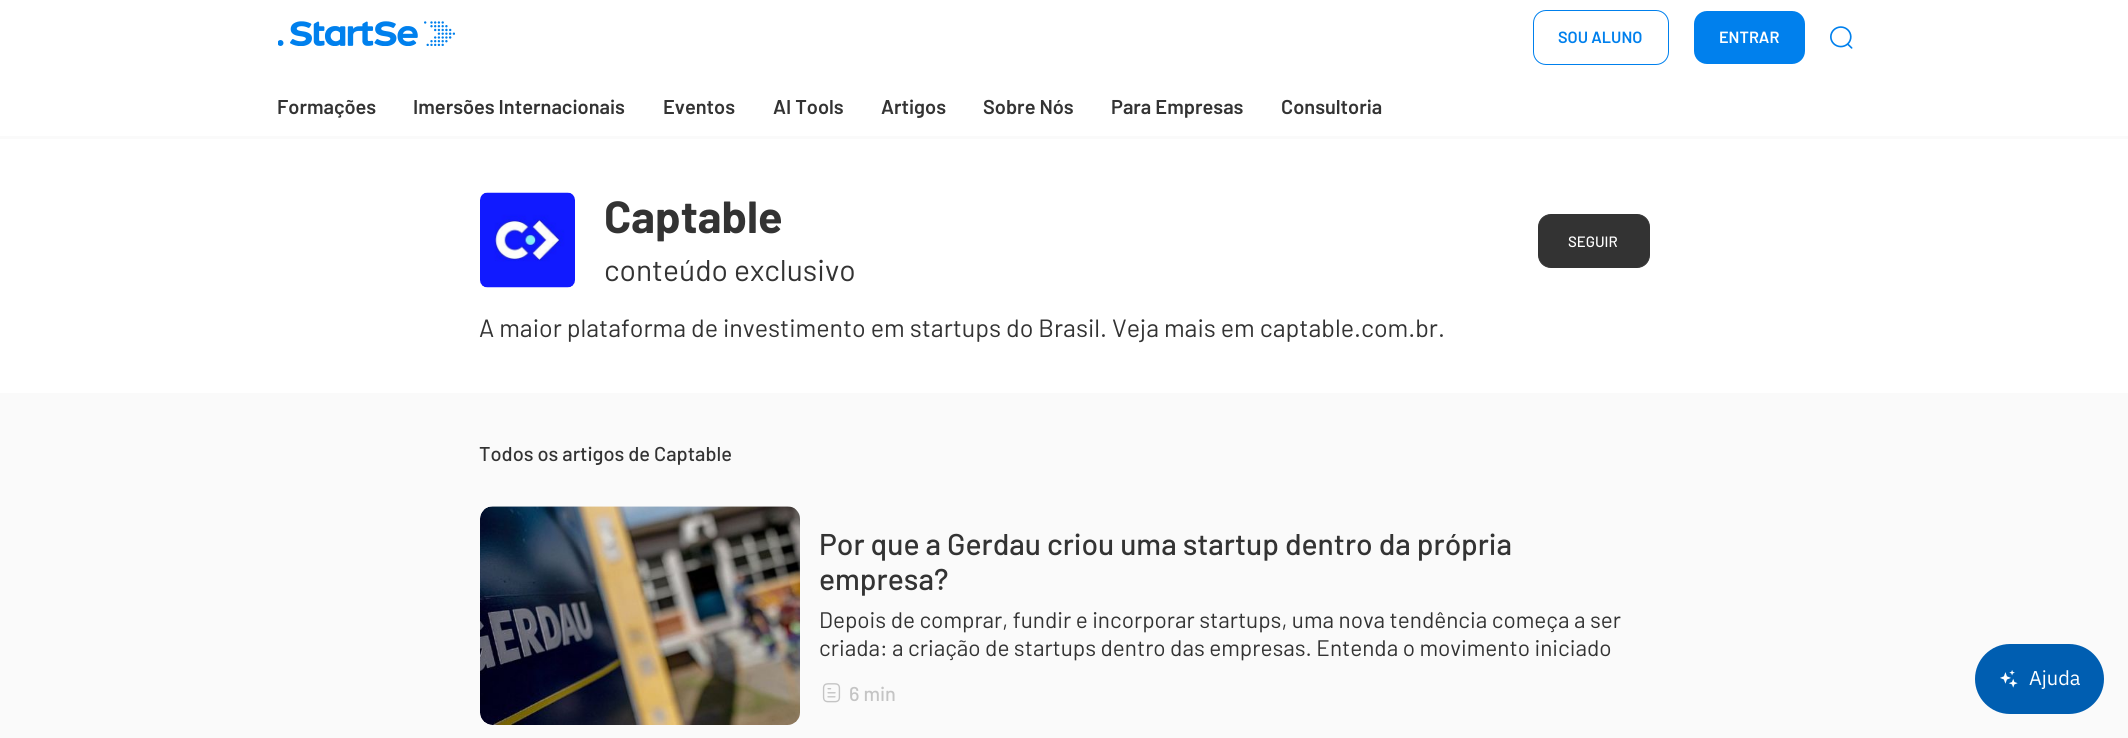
#include <cairo.h>
#include <math.h>
#include <stddef.h>


static void round_rect(cairo_t *cr, double x, double y, double w, double h, double r) {
    cairo_new_sub_path(cr);
    cairo_arc(cr, x + w - r, y + h - r, r, 0, M_PI / 2);
    cairo_arc(cr, x + r, y + h - r, r, M_PI / 2, M_PI);
    cairo_arc(cr, x + r, y + r, r, M_PI, 1.5 * M_PI);
    cairo_arc(cr, x + w - r, y + r, r, 1.5 * M_PI, 2 * M_PI);
    cairo_close_path(cr);
}

static void picture(cairo_t *cr, const char *path, double x, double y, double w, double h) {
    cairo_surface_t *image = cairo_image_surface_create_from_png(path);
    cairo_save(cr);
    cairo_set_source_surface(cr, image, x, y);
    cairo_rectangle(cr, x, y, w, h);
    cairo_fill(cr);
    cairo_restore(cr);
    cairo_surface_destroy(image);
}

int main(void) {
    cairo_surface_t *surface = cairo_image_surface_create(CAIRO_FORMAT_RGB24, 2128, 738);
    cairo_t *cr = cairo_create(surface);
    cairo_font_options_t *options = cairo_font_options_create();
    cairo_font_options_set_hint_metrics(options, CAIRO_HINT_METRICS_OFF);
    cairo_font_options_set_hint_style(options, CAIRO_HINT_STYLE_NONE);
    cairo_set_font_options(cr, options);
    cairo_set_miter_limit(cr, 4);
    cairo_set_source_rgb(cr, 0.98, 0.98, 0.98);
    cairo_paint(cr);
    cairo_set_source_rgb(cr, 1, 1, 1);
    cairo_rectangle(cr, 0, 0, 2128, 136);
    cairo_fill(cr);
    picture(cr, "img1.png", 278, 21, 177, 25);
    round_rect(cr, 1533.5, 10.5, 135, 54, 12.5);
    cairo_set_source_rgb(cr, 0, 0.502, 0.929);
    cairo_set_line_width(cr, 1);
    cairo_stroke(cr);
    cairo_select_font_face(cr, "Barlow SemiBold", CAIRO_FONT_SLANT_NORMAL, CAIRO_FONT_WEIGHT_NORMAL);
    cairo_set_font_size(cr, 16.25);
    cairo_move_to(cr, 1558, 43);
    cairo_show_text(cr, "SOU ALUNO");
    round_rect(cr, 1694, 11, 111, 53, 13);
    cairo_fill(cr);
    cairo_set_source_rgb(cr, 1, 1, 1);
    cairo_move_to(cr, 1719, 43);
    cairo_show_text(cr, "ENTRAR");
    picture(cr, "img2.png", 1830, 26, 23, 23);
    cairo_set_font_size(cr, 20);
    cairo_set_source_rgb(cr, 0.2, 0.2, 0.2);
    cairo_move_to(cr, 277, 114);
    cairo_show_text(cr, "Formações");
    cairo_move_to(cr, 413, 114);
    cairo_show_text(cr, "Imersões Internacionais");
    cairo_move_to(cr, 663, 114);
    cairo_show_text(cr, "Eventos");
    cairo_move_to(cr, 773, 114);
    cairo_show_text(cr, "AI Tools");
    cairo_move_to(cr, 881, 114);
    cairo_show_text(cr, "Artigos");
    cairo_move_to(cr, 983, 114);
    cairo_show_text(cr, "Sobre Nós");
    cairo_move_to(cr, 1111, 114);
    cairo_show_text(cr, "Para Empresas");
    cairo_move_to(cr, 1281, 114);
    cairo_show_text(cr, "Consultoria");
    cairo_set_source_rgb(cr, 1, 1, 1);
    cairo_rectangle(cr, 0, 139, 2128, 254);
    cairo_fill(cr);
    picture(cr, "img3.png", 480, 192, 95, 96);
    cairo_select_font_face(cr, "Barlow", CAIRO_FONT_SLANT_NORMAL, CAIRO_FONT_WEIGHT_BOLD);
    cairo_set_font_size(cr, 45);
    cairo_set_source_rgb(cr, 0.2, 0.2, 0.2);
    cairo_move_to(cr, 604, 233);
    cairo_show_text(cr, "Captable");
    cairo_select_font_face(cr, "Barlow", CAIRO_FONT_SLANT_NORMAL, CAIRO_FONT_WEIGHT_NORMAL);
    cairo_set_font_size(cr, 30);
    cairo_move_to(cr, 604, 281);
    cairo_show_text(cr, "conteúdo exclusivo");
    round_rect(cr, 1538.5, 214.5, 111, 53, 12.5);
    cairo_fill_preserve(cr);
    cairo_stroke(cr);
    cairo_select_font_face(cr, "Barlow Medium", CAIRO_FONT_SLANT_NORMAL, CAIRO_FONT_WEIGHT_NORMAL);
    cairo_set_font_size(cr, 15);
    cairo_set_source_rgb(cr, 1, 1, 1);
    cairo_move_to(cr, 1568, 247);
    cairo_show_text(cr, "SEGUIR");
    cairo_select_font_face(cr, "Barlow", CAIRO_FONT_SLANT_NORMAL, CAIRO_FONT_WEIGHT_NORMAL);
    cairo_set_font_size(cr, 25);
    cairo_set_source_rgb(cr, 0.2, 0.2, 0.2);
    cairo_move_to(cr, 479, 337);
    cairo_show_text(cr, "A maior plataforma de investimento em startups do Brasil. Veja mais em captable.com.br.");
    cairo_select_font_face(cr, "Barlow Medium", CAIRO_FONT_SLANT_NORMAL, CAIRO_FONT_WEIGHT_NORMAL);
    cairo_set_font_size(cr, 20);
    cairo_move_to(cr, 479, 461);
    cairo_show_text(cr, "Todos os artigos de Captable");
    picture(cr, "img4.png", 480, 506, 320, 219);
    cairo_set_font_size(cr, 30);
    cairo_move_to(cr, 819, 555);
    cairo_show_text(cr, "Por que a Gerdau criou uma startup dentro da própria");
    cairo_move_to(cr, 819, 590);
    cairo_show_text(cr, "empresa?");
    cairo_select_font_face(cr, "Barlow", CAIRO_FONT_SLANT_NORMAL, CAIRO_FONT_WEIGHT_NORMAL);
    cairo_set_font_size(cr, 22.5);
    cairo_move_to(cr, 819, 628);
    cairo_show_text(cr, "Depois de comprar, fundir e incorporar startups, uma nova tendência começa a ser");
    cairo_move_to(cr, 819, 656);
    cairo_show_text(cr, "criada: a criação de startups dentro das empresas. Entenda o movimento iniciado");
    picture(cr, "img5.png", 822, 683, 19, 20);
    cairo_select_font_face(cr, "Barlow Medium", CAIRO_FONT_SLANT_NORMAL, CAIRO_FONT_WEIGHT_NORMAL);
    cairo_set_font_size(cr, 20);
    cairo_set_source_rgb(cr, 0.769, 0.769, 0.769);
    cairo_move_to(cr, 849, 701);
    cairo_show_text(cr, "6 min");
    cairo_set_source_rgb(cr, 0, 0.369, 0.694);
    round_rect(cr, 1975, 644, 129, 70, 35);
    cairo_fill(cr);
    picture(cr, "img6.png", 2000, 670, 18, 18);
    cairo_select_font_face(cr, "IBM Plex Sans", CAIRO_FONT_SLANT_NORMAL, CAIRO_FONT_WEIGHT_NORMAL);
    cairo_set_source_rgb(cr, 1, 1, 1);
    cairo_move_to(cr, 2029, 685);
    cairo_show_text(cr, "Ajuda");
    cairo_surface_write_to_png(surface, "page.png");
    cairo_font_options_destroy(options);
    cairo_destroy(cr);
    cairo_surface_destroy(surface);
    return 0;
}
